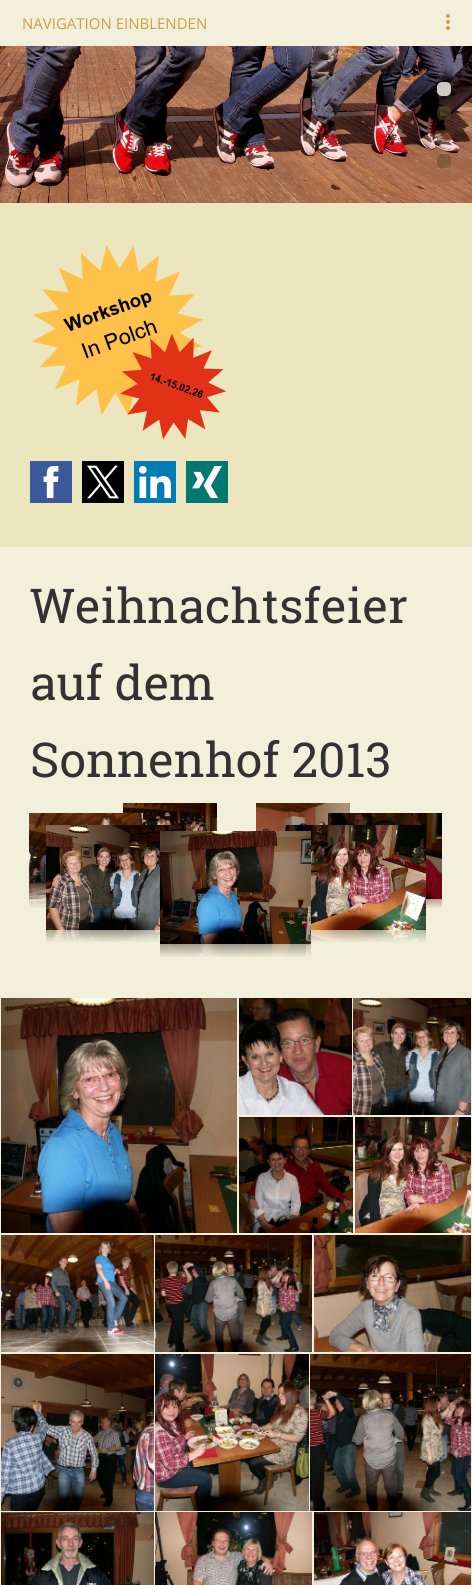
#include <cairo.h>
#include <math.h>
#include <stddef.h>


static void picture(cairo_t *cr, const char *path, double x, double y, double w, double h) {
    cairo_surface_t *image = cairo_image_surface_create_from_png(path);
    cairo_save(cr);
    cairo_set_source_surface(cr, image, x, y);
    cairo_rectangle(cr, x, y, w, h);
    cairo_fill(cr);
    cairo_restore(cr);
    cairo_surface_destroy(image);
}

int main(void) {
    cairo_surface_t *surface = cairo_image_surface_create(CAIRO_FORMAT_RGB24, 472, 1585);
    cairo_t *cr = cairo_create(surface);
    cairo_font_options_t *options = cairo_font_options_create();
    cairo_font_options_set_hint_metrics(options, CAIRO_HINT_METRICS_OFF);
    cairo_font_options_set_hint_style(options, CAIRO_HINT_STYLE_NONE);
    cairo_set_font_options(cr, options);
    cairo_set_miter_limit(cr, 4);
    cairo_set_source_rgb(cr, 0.922, 0.902, 0.749);
    cairo_paint(cr);
    cairo_set_source_rgb(cr, 0.949, 0.941, 0.855);
    cairo_rectangle(cr, 0, 0, 472, 46);
    cairo_fill(cr);
    picture(cr, "img1.png", 446, 14, 4, 16);
    cairo_select_font_face(cr, "Open Sans", CAIRO_FONT_SLANT_NORMAL, CAIRO_FONT_WEIGHT_NORMAL);
    cairo_set_font_size(cr, 15);
    cairo_set_source_rgb(cr, 0.8, 0.624, 0.259);
    cairo_move_to(cr, 22, 29);
    cairo_show_text(cr, "NAVIGATION EINBLENDEN");
    picture(cr, "img2.png", 0, 46, 472, 157);
    picture(cr, "img3.png", 437, 82, 14, 14);
    picture(cr, "img4.png", 437, 106, 14, 14);
    picture(cr, "img5.png", 437, 130, 14, 14);
    picture(cr, "img6.png", 437, 154, 14, 14);
    picture(cr, "img7.png", 32, 245, 195, 195);
    cairo_set_source_rgb(cr, 0.231, 0.349, 0.596);
    cairo_rectangle(cr, 30, 461, 42, 42);
    cairo_fill(cr);
    picture(cr, "img8.png", 43, 466, 16, 32);
    cairo_set_source_rgb(cr, 0, 0, 0);
    cairo_rectangle(cr, 82, 461, 42, 42);
    cairo_fill(cr);
    picture(cr, "img9.png", 87, 465, 32, 34);
    cairo_set_source_rgb(cr, 0, 0.482, 0.71);
    cairo_rectangle(cr, 134, 461, 42, 42);
    cairo_fill(cr);
    picture(cr, "img10.png", 139, 466, 32, 32);
    cairo_set_source_rgb(cr, 0, 0.467, 0.443);
    cairo_rectangle(cr, 186, 461, 42, 42);
    cairo_fill(cr);
    picture(cr, "img11.png", 192, 466, 30, 32);
    cairo_set_source_rgb(cr, 0.949, 0.941, 0.855);
    cairo_rectangle(cr, 0, 547, 472, 1038);
    cairo_fill(cr);
    cairo_select_font_face(cr, "Roboto Slab", CAIRO_FONT_SLANT_NORMAL, CAIRO_FONT_WEIGHT_NORMAL);
    cairo_set_font_size(cr, 48);
    cairo_set_source_rgb(cr, 0.196, 0.196, 0.196);
    cairo_move_to(cr, 30, 623);
    cairo_show_text(cr, "Weihnachtsfeier");
    cairo_move_to(cr, 30, 700);
    cairo_show_text(cr, "auf dem");
    cairo_move_to(cr, 30, 777);
    cairo_show_text(cr, "Sonnenhof 2013");
    picture(cr, "img14.png", 123, 803, 94, 28);
    picture(cr, "img12.png", 29, 813, 114, 86);
    picture(cr, "img13.png", 29, 899, 17, 9);
    picture(cr, "img15.png", 256, 803, 94, 28);
    picture(cr, "img16.png", 328, 813, 114, 86);
    picture(cr, "img17.png", 426, 899, 16, 9);
    picture(cr, "img18.png", 46, 825, 140, 105);
    picture(cr, "img19.png", 46, 930, 114, 12);
    picture(cr, "img22.png", 286, 825, 140, 105);
    picture(cr, "img20.png", 160, 831, 151, 113);
    picture(cr, "img21.png", 160, 944, 151, 13);
    picture(cr, "img23.png", 311, 930, 115, 12);
    picture(cr, "img24.png", 1, 998, 236, 235);
    picture(cr, "img25.png", 239, 998, 113, 117);
    picture(cr, "img26.png", 353, 998, 118, 117);
    picture(cr, "img27.png", 239, 1117, 114, 116);
    picture(cr, "img28.png", 355, 1117, 116, 116);
    picture(cr, "img29.png", 1, 1235, 153, 117);
    picture(cr, "img30.png", 155, 1235, 157, 117);
    picture(cr, "img31.png", 314, 1235, 157, 117);
    picture(cr, "img32.png", 1, 1354, 153, 157);
    picture(cr, "img33.png", 155, 1354, 154, 157);
    picture(cr, "img34.png", 310, 1354, 161, 157);
    picture(cr, "img35.png", 1, 1512, 153, 73);
    picture(cr, "img36.png", 155, 1512, 157, 73);
    picture(cr, "img37.png", 314, 1512, 157, 73);
    cairo_surface_write_to_png(surface, "page.png");
    cairo_font_options_destroy(options);
    cairo_destroy(cr);
    cairo_surface_destroy(surface);
    return 0;
}
